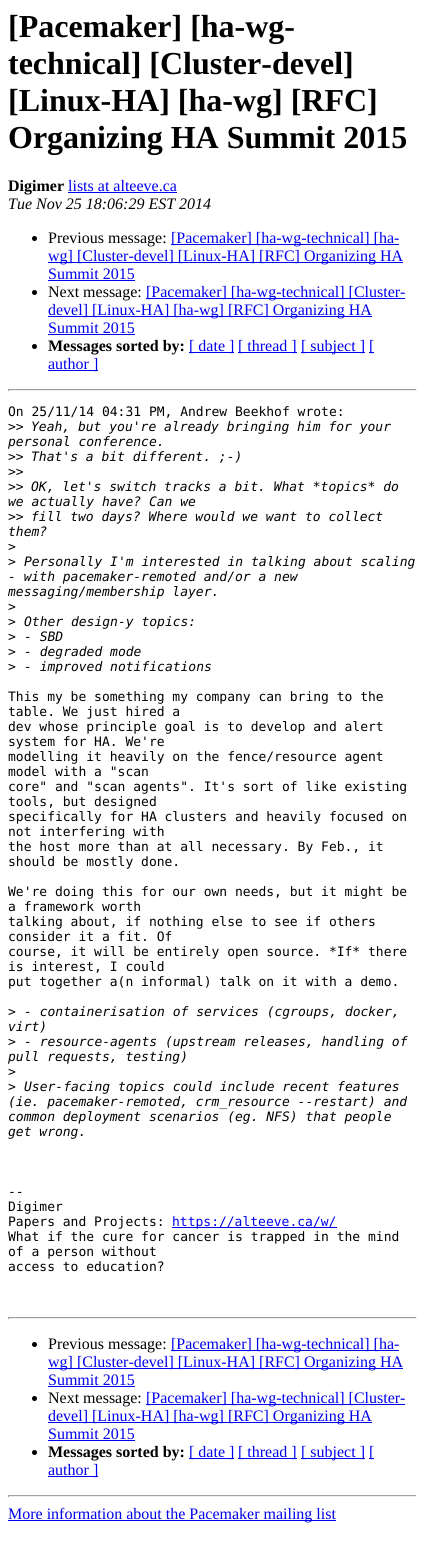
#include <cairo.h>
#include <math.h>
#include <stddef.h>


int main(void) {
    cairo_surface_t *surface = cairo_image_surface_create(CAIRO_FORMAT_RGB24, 425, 1546);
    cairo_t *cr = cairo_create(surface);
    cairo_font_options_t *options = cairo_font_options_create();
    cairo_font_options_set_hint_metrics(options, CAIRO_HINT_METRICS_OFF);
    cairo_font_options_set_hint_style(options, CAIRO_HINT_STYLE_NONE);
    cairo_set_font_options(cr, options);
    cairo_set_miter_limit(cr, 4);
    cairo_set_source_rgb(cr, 1, 1, 1);
    cairo_paint(cr);
    cairo_select_font_face(cr, "Liberation Serif", CAIRO_FONT_SLANT_NORMAL, CAIRO_FONT_WEIGHT_BOLD);
    cairo_set_font_size(cr, 32);
    cairo_set_source_rgb(cr, 0, 0, 0);
    cairo_move_to(cr, 8, 37);
    cairo_show_text(cr, "[Pacemaker] [ha-wg-");
    cairo_move_to(cr, 8, 74);
    cairo_show_text(cr, "technical] [Cluster-devel]");
    cairo_move_to(cr, 8, 111);
    cairo_show_text(cr, "[Linux-HA] [ha-wg] [RFC]");
    cairo_move_to(cr, 8, 148);
    cairo_show_text(cr, "Organizing HA Summit 2015");
    cairo_set_font_size(cr, 16);
    cairo_move_to(cr, 8, 191);
    cairo_show_text(cr, "Digimer");
    cairo_select_font_face(cr, "Liberation Serif", CAIRO_FONT_SLANT_NORMAL, CAIRO_FONT_WEIGHT_NORMAL);
    cairo_set_source_rgb(cr, 0, 0, 0.933);
    cairo_move_to(cr, 68, 191);
    cairo_show_text(cr, "lists at alteeve.ca");
    cairo_rectangle(cr, 68, 192, 109, 1);
    cairo_fill(cr);
    cairo_select_font_face(cr, "Liberation Serif", CAIRO_FONT_SLANT_ITALIC, CAIRO_FONT_WEIGHT_NORMAL);
    cairo_set_source_rgb(cr, 0, 0, 0);
    cairo_move_to(cr, 8, 209);
    cairo_show_text(cr, "Tue Nov 25 18:06:29 EST 2014");
    cairo_new_path(cr);
    cairo_arc(cr, 34.5, 238.5, 2.5, 0, 2 * M_PI);
    cairo_fill(cr);
    cairo_select_font_face(cr, "Liberation Serif", CAIRO_FONT_SLANT_NORMAL, CAIRO_FONT_WEIGHT_NORMAL);
    cairo_move_to(cr, 48, 243);
    cairo_show_text(cr, "Previous message:");
    cairo_set_source_rgb(cr, 0, 0, 0.933);
    cairo_rectangle(cr, 171, 244, 228, 1);
    cairo_fill(cr);
    cairo_move_to(cr, 171, 243);
    cairo_show_text(cr, "[Pacemaker] [ha-wg-technical] [ha-");
    cairo_rectangle(cr, 48, 262, 355, 1);
    cairo_fill(cr);
    cairo_move_to(cr, 48, 261);
    cairo_show_text(cr, "wg] [Cluster-devel] [Linux-HA] [RFC] Organizing HA");
    cairo_move_to(cr, 48, 279);
    cairo_show_text(cr, "Summit 2015");
    cairo_rectangle(cr, 48, 280, 87, 1);
    cairo_fill(cr);
    cairo_set_source_rgb(cr, 0, 0, 0);
    cairo_arc(cr, 34.5, 292.5, 2.5, 0, 2 * M_PI);
    cairo_fill(cr);
    cairo_move_to(cr, 48, 297);
    cairo_show_text(cr, "Next message:");
    cairo_set_source_rgb(cr, 0, 0, 0.933);
    cairo_rectangle(cr, 146, 298, 259, 1);
    cairo_fill(cr);
    cairo_move_to(cr, 146, 297);
    cairo_show_text(cr, "[Pacemaker] [ha-wg-technical] [Cluster-");
    cairo_rectangle(cr, 48, 316, 324, 1);
    cairo_fill(cr);
    cairo_move_to(cr, 48, 315);
    cairo_show_text(cr, "devel] [Linux-HA] [ha-wg] [RFC] Organizing HA");
    cairo_move_to(cr, 48, 333);
    cairo_show_text(cr, "Summit 2015");
    cairo_rectangle(cr, 48, 334, 87, 1);
    cairo_fill(cr);
    cairo_set_source_rgb(cr, 0, 0, 0);
    cairo_arc(cr, 34.5, 346.5, 2.5, 0, 2 * M_PI);
    cairo_fill(cr);
    cairo_select_font_face(cr, "Liberation Serif", CAIRO_FONT_SLANT_NORMAL, CAIRO_FONT_WEIGHT_BOLD);
    cairo_move_to(cr, 48, 351);
    cairo_show_text(cr, "Messages sorted by:");
    cairo_set_source_rgb(cr, 0, 0, 0.933);
    cairo_rectangle(cr, 189, 352, 45, 1);
    cairo_fill(cr);
    cairo_select_font_face(cr, "Liberation Serif", CAIRO_FONT_SLANT_NORMAL, CAIRO_FONT_WEIGHT_NORMAL);
    cairo_move_to(cr, 189, 351);
    cairo_show_text(cr, "[ date ]");
    cairo_rectangle(cr, 238, 352, 59, 1);
    cairo_fill(cr);
    cairo_move_to(cr, 238, 351);
    cairo_show_text(cr, "[ thread ]");
    cairo_rectangle(cr, 301, 352, 64, 1);
    cairo_fill(cr);
    cairo_move_to(cr, 301, 351);
    cairo_show_text(cr, "[ subject ]");
    cairo_rectangle(cr, 369, 352, 5, 1);
    cairo_fill(cr);
    cairo_move_to(cr, 369, 351);
    cairo_show_text(cr, "[");
    cairo_rectangle(cr, 48, 370, 50, 1);
    cairo_fill(cr);
    cairo_move_to(cr, 48, 369);
    cairo_show_text(cr, "author ]");
    cairo_set_source_rgb(cr, 0.624, 0.624, 0.624);
    cairo_rectangle(cr, 8, 389, 409, 1);
    cairo_fill(cr);
    cairo_set_source_rgb(cr, 0.933, 0.933, 0.933);
    cairo_rectangle(cr, 416, 389, 1, 2);
    cairo_fill(cr);
    cairo_rectangle(cr, 8, 390, 409, 1);
    cairo_fill(cr);
    cairo_set_source_rgb(cr, 0.624, 0.624, 0.624);
    cairo_rectangle(cr, 8, 389, 1, 2);
    cairo_fill(cr);
    cairo_select_font_face(cr, "DejaVu Sans Mono", CAIRO_FONT_SLANT_NORMAL, CAIRO_FONT_WEIGHT_NORMAL);
    cairo_set_font_size(cr, 13);
    cairo_set_source_rgb(cr, 0, 0, 0);
    cairo_move_to(cr, 8, 416);
    cairo_show_text(cr, "On 25/11/14 04:31 PM, Andrew Beekhof wrote:");
    cairo_move_to(cr, 8, 431);
    cairo_show_text(cr, ">>");
    cairo_select_font_face(cr, "DejaVu Sans Mono", CAIRO_FONT_SLANT_ITALIC, CAIRO_FONT_WEIGHT_NORMAL);
    cairo_move_to(cr, 31, 431);
    cairo_show_text(cr, "Yeah, but you're already bringing him for your");
    cairo_move_to(cr, 8, 446);
    cairo_show_text(cr, "personal conference.");
    cairo_select_font_face(cr, "DejaVu Sans Mono", CAIRO_FONT_SLANT_NORMAL, CAIRO_FONT_WEIGHT_NORMAL);
    cairo_move_to(cr, 8, 461);
    cairo_show_text(cr, ">>");
    cairo_select_font_face(cr, "DejaVu Sans Mono", CAIRO_FONT_SLANT_ITALIC, CAIRO_FONT_WEIGHT_NORMAL);
    cairo_move_to(cr, 31, 461);
    cairo_show_text(cr, "That's a bit different. ;-)");
    cairo_select_font_face(cr, "DejaVu Sans Mono", CAIRO_FONT_SLANT_NORMAL, CAIRO_FONT_WEIGHT_NORMAL);
    cairo_move_to(cr, 8, 476);
    cairo_show_text(cr, ">>");
    cairo_move_to(cr, 8, 491);
    cairo_show_text(cr, ">>");
    cairo_select_font_face(cr, "DejaVu Sans Mono", CAIRO_FONT_SLANT_ITALIC, CAIRO_FONT_WEIGHT_NORMAL);
    cairo_move_to(cr, 31, 491);
    cairo_show_text(cr, "OK, let's switch tracks a bit. What *topics* do");
    cairo_move_to(cr, 8, 506);
    cairo_show_text(cr, "we actually have? Can we");
    cairo_select_font_face(cr, "DejaVu Sans Mono", CAIRO_FONT_SLANT_NORMAL, CAIRO_FONT_WEIGHT_NORMAL);
    cairo_move_to(cr, 8, 521);
    cairo_show_text(cr, ">>");
    cairo_select_font_face(cr, "DejaVu Sans Mono", CAIRO_FONT_SLANT_ITALIC, CAIRO_FONT_WEIGHT_NORMAL);
    cairo_move_to(cr, 31, 521);
    cairo_show_text(cr, "fill two days? Where would we want to collect");
    cairo_move_to(cr, 8, 536);
    cairo_show_text(cr, "them?");
    cairo_select_font_face(cr, "DejaVu Sans Mono", CAIRO_FONT_SLANT_NORMAL, CAIRO_FONT_WEIGHT_NORMAL);
    cairo_move_to(cr, 8, 551);
    cairo_show_text(cr, ">");
    cairo_move_to(cr, 8, 566);
    cairo_show_text(cr, ">");
    cairo_select_font_face(cr, "DejaVu Sans Mono", CAIRO_FONT_SLANT_ITALIC, CAIRO_FONT_WEIGHT_NORMAL);
    cairo_move_to(cr, 24, 566);
    cairo_show_text(cr, "Personally I'm interested in talking about scaling");
    cairo_move_to(cr, 8, 581);
    cairo_show_text(cr, "- with pacemaker-remoted and/or a new");
    cairo_move_to(cr, 8, 596);
    cairo_show_text(cr, "messaging/membership layer.");
    cairo_select_font_face(cr, "DejaVu Sans Mono", CAIRO_FONT_SLANT_NORMAL, CAIRO_FONT_WEIGHT_NORMAL);
    cairo_move_to(cr, 8, 611);
    cairo_show_text(cr, ">");
    cairo_move_to(cr, 8, 626);
    cairo_show_text(cr, ">");
    cairo_select_font_face(cr, "DejaVu Sans Mono", CAIRO_FONT_SLANT_ITALIC, CAIRO_FONT_WEIGHT_NORMAL);
    cairo_move_to(cr, 24, 626);
    cairo_show_text(cr, "Other design-y topics:");
    cairo_select_font_face(cr, "DejaVu Sans Mono", CAIRO_FONT_SLANT_NORMAL, CAIRO_FONT_WEIGHT_NORMAL);
    cairo_move_to(cr, 8, 641);
    cairo_show_text(cr, ">");
    cairo_select_font_face(cr, "DejaVu Sans Mono", CAIRO_FONT_SLANT_ITALIC, CAIRO_FONT_WEIGHT_NORMAL);
    cairo_move_to(cr, 24, 641);
    cairo_show_text(cr, "- SBD");
    cairo_select_font_face(cr, "DejaVu Sans Mono", CAIRO_FONT_SLANT_NORMAL, CAIRO_FONT_WEIGHT_NORMAL);
    cairo_move_to(cr, 8, 656);
    cairo_show_text(cr, ">");
    cairo_select_font_face(cr, "DejaVu Sans Mono", CAIRO_FONT_SLANT_ITALIC, CAIRO_FONT_WEIGHT_NORMAL);
    cairo_move_to(cr, 24, 656);
    cairo_show_text(cr, "- degraded mode");
    cairo_select_font_face(cr, "DejaVu Sans Mono", CAIRO_FONT_SLANT_NORMAL, CAIRO_FONT_WEIGHT_NORMAL);
    cairo_move_to(cr, 8, 671);
    cairo_show_text(cr, ">");
    cairo_select_font_face(cr, "DejaVu Sans Mono", CAIRO_FONT_SLANT_ITALIC, CAIRO_FONT_WEIGHT_NORMAL);
    cairo_move_to(cr, 24, 671);
    cairo_show_text(cr, "- improved notifications");
    cairo_select_font_face(cr, "DejaVu Sans Mono", CAIRO_FONT_SLANT_NORMAL, CAIRO_FONT_WEIGHT_NORMAL);
    cairo_move_to(cr, 8, 701);
    cairo_show_text(cr, "This my be something my company can bring to the");
    cairo_move_to(cr, 8, 716);
    cairo_show_text(cr, "table. We just hired a");
    cairo_move_to(cr, 8, 731);
    cairo_show_text(cr, "dev whose principle goal is to develop and alert");
    cairo_move_to(cr, 8, 746);
    cairo_show_text(cr, "system for HA. We're");
    cairo_move_to(cr, 8, 761);
    cairo_show_text(cr, "modelling it heavily on the fence/resource agent");
    cairo_move_to(cr, 8, 776);
    cairo_show_text(cr, "model with a \"scan");
    cairo_move_to(cr, 8, 791);
    cairo_show_text(cr, "core\" and \"scan agents\". It's sort of like existing");
    cairo_move_to(cr, 8, 806);
    cairo_show_text(cr, "tools, but designed");
    cairo_move_to(cr, 8, 821);
    cairo_show_text(cr, "specifically for HA clusters and heavily focused on");
    cairo_move_to(cr, 8, 836);
    cairo_show_text(cr, "not interfering with");
    cairo_move_to(cr, 8, 851);
    cairo_show_text(cr, "the host more than at all necessary. By Feb., it");
    cairo_move_to(cr, 8, 866);
    cairo_show_text(cr, "should be mostly done.");
    cairo_move_to(cr, 8, 896);
    cairo_show_text(cr, "We're doing this for our own needs, but it might be");
    cairo_move_to(cr, 8, 911);
    cairo_show_text(cr, "a framework worth");
    cairo_move_to(cr, 8, 926);
    cairo_show_text(cr, "talking about, if nothing else to see if others");
    cairo_move_to(cr, 8, 941);
    cairo_show_text(cr, "consider it a fit. Of");
    cairo_move_to(cr, 8, 956);
    cairo_show_text(cr, "course, it will be entirely open source. *If* there");
    cairo_move_to(cr, 8, 971);
    cairo_show_text(cr, "is interest, I could");
    cairo_move_to(cr, 8, 986);
    cairo_show_text(cr, "put together a(n informal) talk on it with a demo.");
    cairo_move_to(cr, 8, 1016);
    cairo_show_text(cr, ">");
    cairo_select_font_face(cr, "DejaVu Sans Mono", CAIRO_FONT_SLANT_ITALIC, CAIRO_FONT_WEIGHT_NORMAL);
    cairo_move_to(cr, 24, 1016);
    cairo_show_text(cr, "- containerisation of services (cgroups, docker,");
    cairo_move_to(cr, 8, 1031);
    cairo_show_text(cr, "virt)");
    cairo_select_font_face(cr, "DejaVu Sans Mono", CAIRO_FONT_SLANT_NORMAL, CAIRO_FONT_WEIGHT_NORMAL);
    cairo_move_to(cr, 8, 1046);
    cairo_show_text(cr, ">");
    cairo_select_font_face(cr, "DejaVu Sans Mono", CAIRO_FONT_SLANT_ITALIC, CAIRO_FONT_WEIGHT_NORMAL);
    cairo_move_to(cr, 24, 1046);
    cairo_show_text(cr, "- resource-agents (upstream releases, handling of");
    cairo_move_to(cr, 8, 1061);
    cairo_show_text(cr, "pull requests, testing)");
    cairo_select_font_face(cr, "DejaVu Sans Mono", CAIRO_FONT_SLANT_NORMAL, CAIRO_FONT_WEIGHT_NORMAL);
    cairo_move_to(cr, 8, 1076);
    cairo_show_text(cr, ">");
    cairo_move_to(cr, 8, 1091);
    cairo_show_text(cr, ">");
    cairo_select_font_face(cr, "DejaVu Sans Mono", CAIRO_FONT_SLANT_ITALIC, CAIRO_FONT_WEIGHT_NORMAL);
    cairo_move_to(cr, 24, 1091);
    cairo_show_text(cr, "User-facing topics could include recent features");
    cairo_move_to(cr, 8, 1106);
    cairo_show_text(cr, "(ie. pacemaker-remoted, crm_resource --restart) and");
    cairo_move_to(cr, 8, 1121);
    cairo_show_text(cr, "common deployment scenarios (eg. NFS) that people");
    cairo_move_to(cr, 8, 1136);
    cairo_show_text(cr, "get wrong.");
    cairo_select_font_face(cr, "DejaVu Sans Mono", CAIRO_FONT_SLANT_NORMAL, CAIRO_FONT_WEIGHT_NORMAL);
    cairo_move_to(cr, 8, 1196);
    cairo_show_text(cr, "--");
    cairo_move_to(cr, 8, 1211);
    cairo_show_text(cr, "Digimer");
    cairo_move_to(cr, 8, 1226);
    cairo_show_text(cr, "Papers and Projects:");
    cairo_set_source_rgb(cr, 0, 0, 0.933);
    cairo_rectangle(cr, 172, 1227, 165, 1);
    cairo_fill(cr);
    cairo_move_to(cr, 172, 1226);
    cairo_show_text(cr, "https://alteeve.ca/w/");
    cairo_set_source_rgb(cr, 0, 0, 0);
    cairo_move_to(cr, 8, 1241);
    cairo_show_text(cr, "What if the cure for cancer is trapped in the mind");
    cairo_move_to(cr, 8, 1256);
    cairo_show_text(cr, "of a person without");
    cairo_move_to(cr, 8, 1271);
    cairo_show_text(cr, "access to education?");
    cairo_set_source_rgb(cr, 0.624, 0.624, 0.624);
    cairo_rectangle(cr, 8, 1317, 409, 1);
    cairo_fill(cr);
    cairo_set_source_rgb(cr, 0.933, 0.933, 0.933);
    cairo_rectangle(cr, 416, 1317, 1, 2);
    cairo_fill(cr);
    cairo_rectangle(cr, 8, 1318, 409, 1);
    cairo_fill(cr);
    cairo_set_source_rgb(cr, 0.624, 0.624, 0.624);
    cairo_rectangle(cr, 8, 1317, 1, 2);
    cairo_fill(cr);
    cairo_set_source_rgb(cr, 0, 0, 0);
    cairo_arc(cr, 34.5, 1344.5, 2.5, 0, 2 * M_PI);
    cairo_fill(cr);
    cairo_select_font_face(cr, "Liberation Serif", CAIRO_FONT_SLANT_NORMAL, CAIRO_FONT_WEIGHT_NORMAL);
    cairo_set_font_size(cr, 16);
    cairo_move_to(cr, 48, 1349);
    cairo_show_text(cr, "Previous message:");
    cairo_set_source_rgb(cr, 0, 0, 0.933);
    cairo_rectangle(cr, 171, 1350, 228, 1);
    cairo_fill(cr);
    cairo_move_to(cr, 171, 1349);
    cairo_show_text(cr, "[Pacemaker] [ha-wg-technical] [ha-");
    cairo_rectangle(cr, 48, 1368, 355, 1);
    cairo_fill(cr);
    cairo_move_to(cr, 48, 1367);
    cairo_show_text(cr, "wg] [Cluster-devel] [Linux-HA] [RFC] Organizing HA");
    cairo_move_to(cr, 48, 1385);
    cairo_show_text(cr, "Summit 2015");
    cairo_rectangle(cr, 48, 1386, 87, 1);
    cairo_fill(cr);
    cairo_set_source_rgb(cr, 0, 0, 0);
    cairo_arc(cr, 34.5, 1398.5, 2.5, 0, 2 * M_PI);
    cairo_fill(cr);
    cairo_move_to(cr, 48, 1403);
    cairo_show_text(cr, "Next message:");
    cairo_set_source_rgb(cr, 0, 0, 0.933);
    cairo_rectangle(cr, 146, 1404, 259, 1);
    cairo_fill(cr);
    cairo_move_to(cr, 146, 1403);
    cairo_show_text(cr, "[Pacemaker] [ha-wg-technical] [Cluster-");
    cairo_rectangle(cr, 48, 1422, 324, 1);
    cairo_fill(cr);
    cairo_move_to(cr, 48, 1421);
    cairo_show_text(cr, "devel] [Linux-HA] [ha-wg] [RFC] Organizing HA");
    cairo_move_to(cr, 48, 1439);
    cairo_show_text(cr, "Summit 2015");
    cairo_rectangle(cr, 48, 1440, 87, 1);
    cairo_fill(cr);
    cairo_set_source_rgb(cr, 0, 0, 0);
    cairo_arc(cr, 34.5, 1452.5, 2.5, 0, 2 * M_PI);
    cairo_fill(cr);
    cairo_select_font_face(cr, "Liberation Serif", CAIRO_FONT_SLANT_NORMAL, CAIRO_FONT_WEIGHT_BOLD);
    cairo_move_to(cr, 48, 1457);
    cairo_show_text(cr, "Messages sorted by:");
    cairo_set_source_rgb(cr, 0, 0, 0.933);
    cairo_rectangle(cr, 189, 1458, 45, 1);
    cairo_fill(cr);
    cairo_select_font_face(cr, "Liberation Serif", CAIRO_FONT_SLANT_NORMAL, CAIRO_FONT_WEIGHT_NORMAL);
    cairo_move_to(cr, 189, 1457);
    cairo_show_text(cr, "[ date ]");
    cairo_rectangle(cr, 238, 1458, 59, 1);
    cairo_fill(cr);
    cairo_move_to(cr, 238, 1457);
    cairo_show_text(cr, "[ thread ]");
    cairo_rectangle(cr, 301, 1458, 64, 1);
    cairo_fill(cr);
    cairo_move_to(cr, 301, 1457);
    cairo_show_text(cr, "[ subject ]");
    cairo_rectangle(cr, 369, 1458, 5, 1);
    cairo_fill(cr);
    cairo_move_to(cr, 369, 1457);
    cairo_show_text(cr, "[");
    cairo_rectangle(cr, 48, 1476, 50, 1);
    cairo_fill(cr);
    cairo_move_to(cr, 48, 1475);
    cairo_show_text(cr, "author ]");
    cairo_set_source_rgb(cr, 0.624, 0.624, 0.624);
    cairo_rectangle(cr, 8, 1495, 409, 1);
    cairo_fill(cr);
    cairo_set_source_rgb(cr, 0.933, 0.933, 0.933);
    cairo_rectangle(cr, 416, 1495, 1, 2);
    cairo_fill(cr);
    cairo_rectangle(cr, 8, 1496, 409, 1);
    cairo_fill(cr);
    cairo_set_source_rgb(cr, 0.624, 0.624, 0.624);
    cairo_rectangle(cr, 8, 1495, 1, 2);
    cairo_fill(cr);
    cairo_set_source_rgb(cr, 0, 0, 0.933);
    cairo_rectangle(cr, 8, 1520, 328, 1);
    cairo_fill(cr);
    cairo_move_to(cr, 8, 1519);
    cairo_show_text(cr, "More information about the Pacemaker mailing list");
    cairo_surface_write_to_png(surface, "page.png");
    cairo_font_options_destroy(options);
    cairo_destroy(cr);
    cairo_surface_destroy(surface);
    return 0;
}
